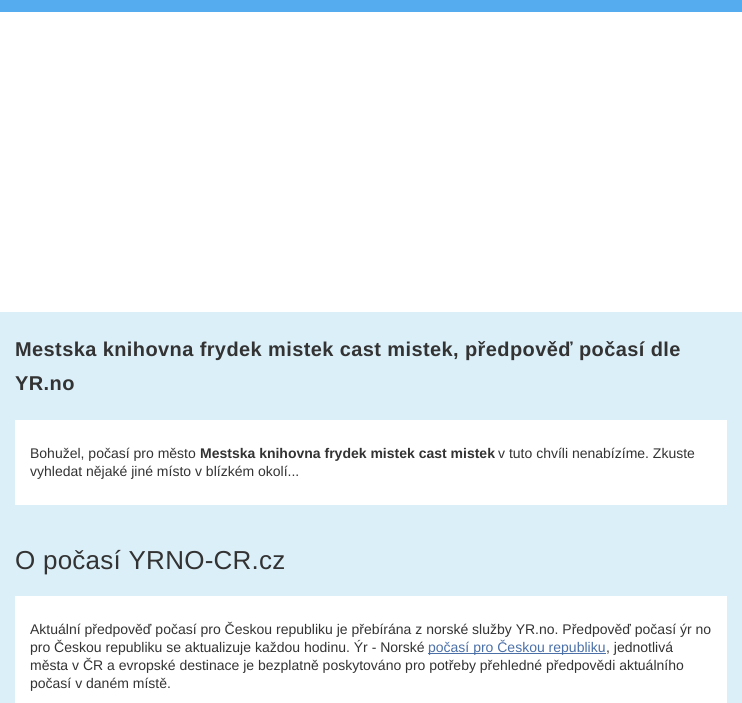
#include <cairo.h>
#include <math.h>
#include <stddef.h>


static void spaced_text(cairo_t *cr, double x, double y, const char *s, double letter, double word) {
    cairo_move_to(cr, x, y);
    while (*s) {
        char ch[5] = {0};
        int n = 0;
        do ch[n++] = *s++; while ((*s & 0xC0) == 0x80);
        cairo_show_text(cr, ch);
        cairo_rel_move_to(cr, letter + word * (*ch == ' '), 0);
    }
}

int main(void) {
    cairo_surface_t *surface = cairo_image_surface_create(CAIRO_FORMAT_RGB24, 742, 703);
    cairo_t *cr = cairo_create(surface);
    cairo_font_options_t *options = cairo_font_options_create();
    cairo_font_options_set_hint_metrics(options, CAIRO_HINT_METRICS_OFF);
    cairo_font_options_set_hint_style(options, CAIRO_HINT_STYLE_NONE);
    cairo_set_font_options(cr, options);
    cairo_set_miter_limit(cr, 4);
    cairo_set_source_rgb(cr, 1, 1, 1);
    cairo_paint(cr);
    cairo_set_source_rgb(cr, 0.333, 0.675, 0.933);
    cairo_rectangle(cr, 0, 0, 742, 12);
    cairo_fill(cr);
    cairo_set_source_rgb(cr, 0.859, 0.937, 0.973);
    cairo_rectangle(cr, 0, 312, 742, 391);
    cairo_fill(cr);
    cairo_select_font_face(cr, "Liberation Sans", CAIRO_FONT_SLANT_NORMAL, CAIRO_FONT_WEIGHT_BOLD);
    cairo_set_font_size(cr, 20);
    cairo_set_source_rgb(cr, 0.2, 0.2, 0.2);
    spaced_text(cr, 15, 356, "Mestska knihovna frydek mistek cast mistek, předpověď počasí dle", 0.4, 0);
    spaced_text(cr, 15, 390, "YR.no", 0.4, 0);
    cairo_set_source_rgb(cr, 1, 1, 1);
    cairo_rectangle(cr, 15, 420, 712, 85);
    cairo_fill(cr);
    cairo_select_font_face(cr, "Liberation Sans", CAIRO_FONT_SLANT_NORMAL, CAIRO_FONT_WEIGHT_NORMAL);
    cairo_set_font_size(cr, 14);
    cairo_set_source_rgb(cr, 0.2, 0.2, 0.2);
    cairo_move_to(cr, 30, 458);
    cairo_show_text(cr, "Bohužel, počasí pro město");
    cairo_select_font_face(cr, "Liberation Sans", CAIRO_FONT_SLANT_NORMAL, CAIRO_FONT_WEIGHT_BOLD);
    cairo_move_to(cr, 200, 458);
    cairo_show_text(cr, "Mestska knihovna frydek mistek cast mistek");
    cairo_select_font_face(cr, "Liberation Sans", CAIRO_FONT_SLANT_NORMAL, CAIRO_FONT_WEIGHT_NORMAL);
    cairo_move_to(cr, 498, 458);
    cairo_show_text(cr, "v tuto chvíli nenabízíme. Zkuste");
    cairo_move_to(cr, 30, 476);
    cairo_show_text(cr, "vyhledat nějaké jiné místo v blízkém okolí...");
    cairo_set_font_size(cr, 26);
    spaced_text(cr, 15, 569, "O počasí YRNO-CR.cz", 0.25, 0);
    cairo_set_source_rgb(cr, 1, 1, 1);
    cairo_rectangle(cr, 15, 596, 712, 107);
    cairo_fill(cr);
    cairo_set_font_size(cr, 14);
    cairo_set_source_rgb(cr, 0.2, 0.2, 0.2);
    cairo_move_to(cr, 30, 634);
    cairo_show_text(cr, "Aktuální předpověď počasí pro Českou republiku je přebírána z norské služby YR.no. Předpověď počasí ýr no");
    cairo_move_to(cr, 30, 652);
    cairo_show_text(cr, "pro Českou republiku se aktualizuje každou hodinu. Ýr - Norské");
    cairo_set_source_rgb(cr, 0.294, 0.439, 0.659);
    cairo_rectangle(cr, 428, 653, 178, 1);
    cairo_fill(cr);
    cairo_move_to(cr, 428, 652);
    cairo_show_text(cr, "počasí pro Českou republiku");
    cairo_set_source_rgb(cr, 0.2, 0.2, 0.2);
    cairo_move_to(cr, 606, 652);
    cairo_show_text(cr, ", jednotlivá");
    cairo_move_to(cr, 30, 670);
    cairo_show_text(cr, "města v ČR a evropské destinace je bezplatně poskytováno pro potřeby přehledné předpovědi aktuálního");
    cairo_move_to(cr, 30, 688);
    cairo_show_text(cr, "počasí v daném místě.");
    cairo_surface_write_to_png(surface, "page.png");
    cairo_font_options_destroy(options);
    cairo_destroy(cr);
    cairo_surface_destroy(surface);
    return 0;
}
